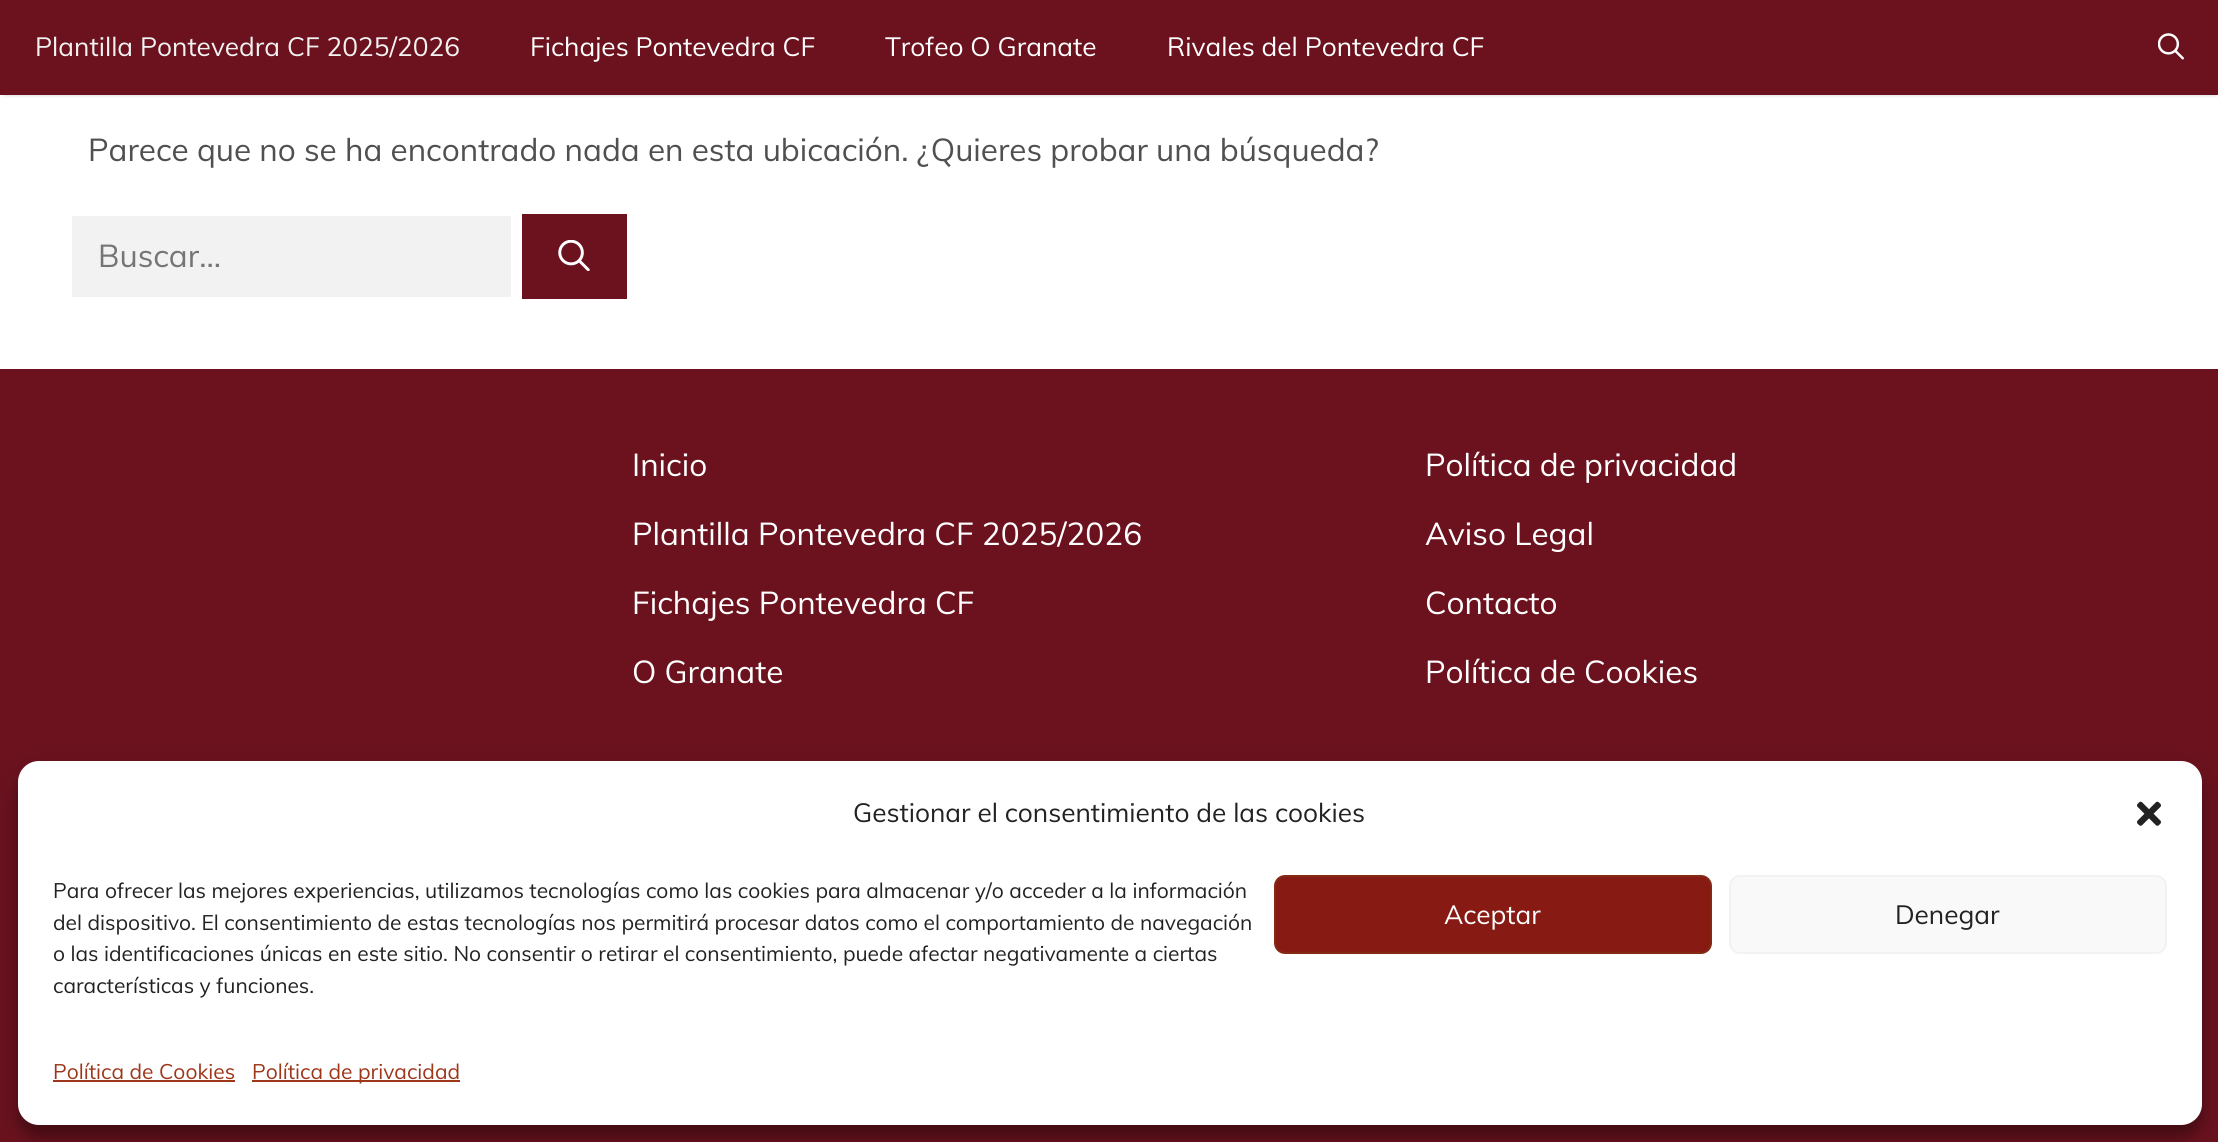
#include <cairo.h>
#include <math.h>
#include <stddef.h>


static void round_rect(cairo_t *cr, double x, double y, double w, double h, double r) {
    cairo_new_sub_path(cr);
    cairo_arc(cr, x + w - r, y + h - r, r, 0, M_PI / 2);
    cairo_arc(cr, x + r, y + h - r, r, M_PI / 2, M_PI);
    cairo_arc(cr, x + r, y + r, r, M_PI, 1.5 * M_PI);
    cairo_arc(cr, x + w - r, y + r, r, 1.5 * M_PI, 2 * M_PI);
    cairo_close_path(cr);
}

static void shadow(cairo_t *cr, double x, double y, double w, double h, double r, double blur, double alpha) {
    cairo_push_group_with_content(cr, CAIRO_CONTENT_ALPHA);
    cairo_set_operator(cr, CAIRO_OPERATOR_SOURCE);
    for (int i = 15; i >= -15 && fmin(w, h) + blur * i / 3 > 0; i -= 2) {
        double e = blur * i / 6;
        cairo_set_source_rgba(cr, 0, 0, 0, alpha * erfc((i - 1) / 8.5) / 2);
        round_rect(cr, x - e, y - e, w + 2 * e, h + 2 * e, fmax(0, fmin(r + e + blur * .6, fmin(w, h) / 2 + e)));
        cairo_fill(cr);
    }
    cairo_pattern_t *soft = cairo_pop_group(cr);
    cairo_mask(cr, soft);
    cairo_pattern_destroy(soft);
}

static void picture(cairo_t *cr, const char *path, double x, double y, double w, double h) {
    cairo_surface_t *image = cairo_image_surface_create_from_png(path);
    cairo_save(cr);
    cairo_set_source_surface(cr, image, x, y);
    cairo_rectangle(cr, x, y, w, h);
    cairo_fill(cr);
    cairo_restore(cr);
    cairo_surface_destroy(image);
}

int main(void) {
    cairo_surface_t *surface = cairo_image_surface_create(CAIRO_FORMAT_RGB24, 2218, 1142);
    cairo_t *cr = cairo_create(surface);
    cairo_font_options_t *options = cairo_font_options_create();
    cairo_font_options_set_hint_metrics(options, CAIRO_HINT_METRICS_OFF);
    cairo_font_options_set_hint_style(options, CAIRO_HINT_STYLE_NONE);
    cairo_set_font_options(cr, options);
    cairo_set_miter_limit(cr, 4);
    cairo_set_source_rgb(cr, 0.42, 0.071, 0.118);
    cairo_paint(cr);
    cairo_set_source_rgb(cr, 1, 1, 1);
    cairo_rectangle(cr, 0, 95, 2218, 274);
    cairo_fill(cr);
    cairo_set_source_rgb(cr, 0, 0, 0);
    shadow(cr, 4, 7, 2212, 88, 0, 2, 0.2);
    cairo_set_source_rgb(cr, 0.42, 0.071, 0.118);
    cairo_rectangle(cr, 2, 5, 2216, 90);
    cairo_fill(cr);
    cairo_select_font_face(cr, "Muli", CAIRO_FONT_SLANT_NORMAL, CAIRO_FONT_WEIGHT_NORMAL);
    cairo_set_font_size(cr, 26.25);
    cairo_set_source_rgb(cr, 0.949, 0.949, 0.949);
    cairo_move_to(cr, 35, 56);
    cairo_show_text(cr, "Plantilla Pontevedra CF 2025/2026");
    cairo_set_source_rgb(cr, 1, 1, 1);
    cairo_move_to(cr, 530, 56);
    cairo_show_text(cr, "Fichajes Pontevedra CF");
    cairo_move_to(cr, 885, 56);
    cairo_show_text(cr, "Trofeo O Granate");
    cairo_move_to(cr, 1167, 56);
    cairo_show_text(cr, "Rivales del Pontevedra CF");
    picture(cr, "img1.png", 2158, 33, 26, 27);
    cairo_set_font_size(cr, 31.5);
    cairo_set_source_rgb(cr, 0.314, 0.314, 0.322);
    cairo_move_to(cr, 88, 161);
    cairo_show_text(cr, "Parece que no se ha encontrado nada en esta ubicación. ¿Quieres probar una búsqueda?");
    cairo_set_source_rgb(cr, 0.949, 0.949, 0.949);
    cairo_rectangle(cr, 72, 216, 439, 81);
    cairo_fill(cr);
    cairo_set_source_rgb(cr, 0.459, 0.459, 0.459);
    cairo_move_to(cr, 98, 267);
    cairo_show_text(cr, "Buscar...");
    cairo_set_source_rgb(cr, 0.42, 0.071, 0.118);
    cairo_rectangle(cr, 522, 214, 105, 85);
    cairo_fill(cr);
    picture(cr, "img2.png", 558, 240, 32, 31);
    cairo_set_source_rgb(cr, 1, 1, 1);
    cairo_move_to(cr, 632, 476);
    cairo_show_text(cr, "Inicio");
    cairo_move_to(cr, 632, 545);
    cairo_show_text(cr, "Plantilla Pontevedra CF 2025/2026");
    cairo_move_to(cr, 632, 614);
    cairo_show_text(cr, "Fichajes Pontevedra CF");
    cairo_move_to(cr, 632, 683);
    cairo_show_text(cr, "O Granate");
    cairo_move_to(cr, 1425, 476);
    cairo_show_text(cr, "Política de privacidad");
    cairo_move_to(cr, 1425, 545);
    cairo_show_text(cr, "Aviso Legal");
    cairo_move_to(cr, 1425, 614);
    cairo_show_text(cr, "Contacto");
    cairo_move_to(cr, 1425, 683);
    cairo_show_text(cr, "Política de Cookies");
    cairo_set_source_rgb(cr, 0, 0, 0);
    shadow(cr, 18, 772, 2184, 364, 21, 5, 0.23);
    shadow(cr, 18, 779, 2184, 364, 21, 17.5, 0.19);
    cairo_set_source_rgb(cr, 1, 1, 1);
    round_rect(cr, 18, 761, 2184, 364, 21);
    cairo_fill(cr);
    cairo_set_font_size(cr, 26.25);
    cairo_set_source_rgb(cr, 0.133, 0.133, 0.133);
    cairo_move_to(cr, 853, 822);
    cairo_show_text(cr, "Gestionar el consentimiento de las cookies");
    picture(cr, "img3.png", 2137, 801, 24, 25);
    cairo_set_font_size(cr, 21);
    cairo_move_to(cr, 53, 898);
    cairo_show_text(cr, "Para ofrecer las mejores experiencias, utilizamos tecnologías como las cookies para almacenar y/o acceder a la información");
    cairo_move_to(cr, 53, 930);
    cairo_show_text(cr, "del dispositivo. El consentimiento de estas tecnologías nos permitirá procesar datos como el comportamiento de navegación");
    cairo_move_to(cr, 53, 961);
    cairo_show_text(cr, "o las identificaciones únicas en este sitio. No consentir o retirar el consentimiento, puede afectar negativamente a ciertas");
    cairo_move_to(cr, 53, 993);
    cairo_show_text(cr, "características y funciones.");
    cairo_set_source_rgb(cr, 0.529, 0.106, 0.082);
    round_rect(cr, 1275, 876, 436, 77, 10);
    cairo_fill_preserve(cr);
    cairo_set_source_rgb(cr, 0.518, 0.161, 0.082);
    cairo_stroke(cr);
    cairo_set_font_size(cr, 26.25);
    cairo_set_source_rgb(cr, 1, 1, 1);
    cairo_move_to(cr, 1444, 924);
    cairo_show_text(cr, "Aceptar");
    cairo_set_source_rgb(cr, 0.976, 0.976, 0.976);
    round_rect(cr, 1730, 876, 436, 77, 10);
    cairo_fill_preserve(cr);
    cairo_set_source_rgb(cr, 0.949, 0.949, 0.949);
    cairo_stroke(cr);
    cairo_set_source_rgb(cr, 0.133, 0.133, 0.133);
    cairo_move_to(cr, 1895, 924);
    cairo_show_text(cr, "Denegar");
    cairo_set_font_size(cr, 21);
    cairo_set_source_rgb(cr, 0.62, 0.212, 0.098);
    cairo_move_to(cr, 53, 1079);
    cairo_show_text(cr, "Política de Cookies");
    cairo_rectangle(cr, 53, 1080, 182, 2);
    cairo_fill(cr);
    cairo_rectangle(cr, 252, 1080, 208, 2);
    cairo_fill(cr);
    cairo_move_to(cr, 252, 1079);
    cairo_show_text(cr, "Política de privacidad");
    cairo_surface_write_to_png(surface, "page.png");
    cairo_font_options_destroy(options);
    cairo_destroy(cr);
    cairo_surface_destroy(surface);
    return 0;
}
